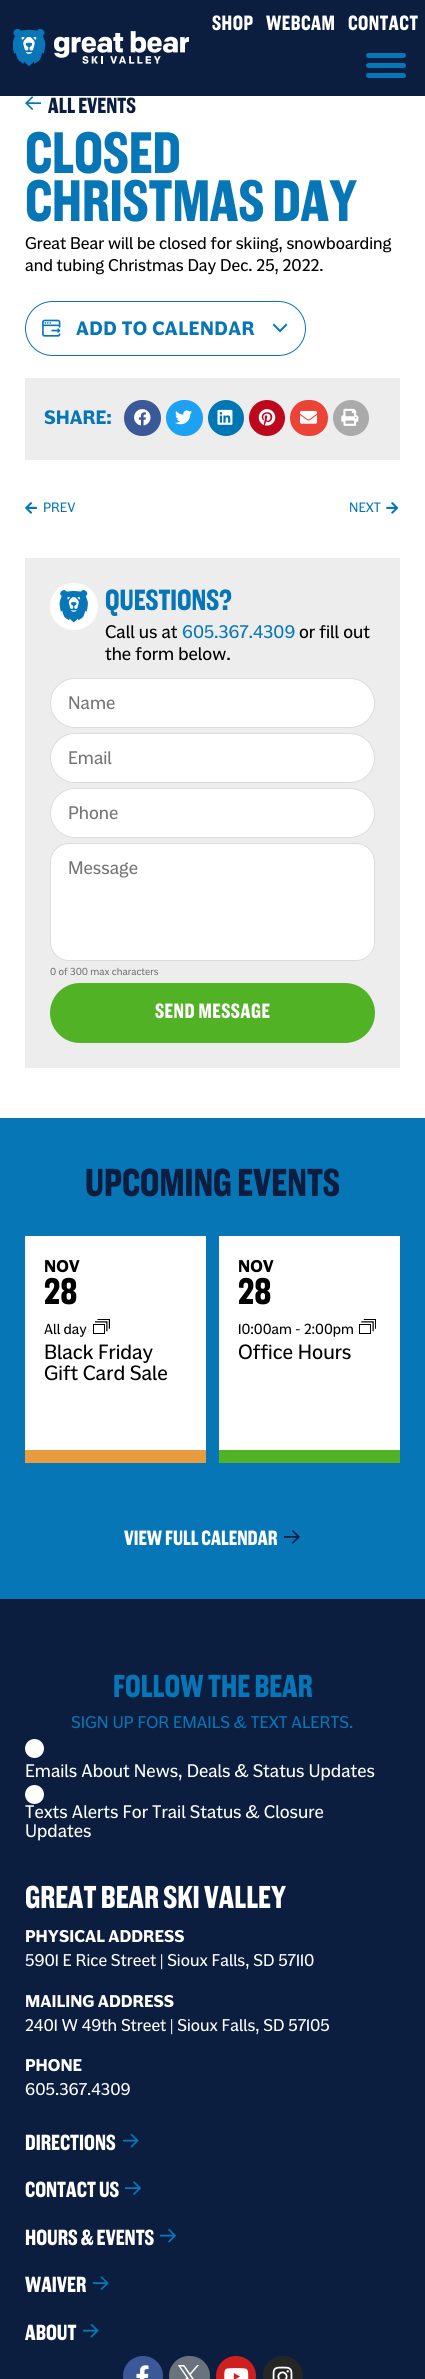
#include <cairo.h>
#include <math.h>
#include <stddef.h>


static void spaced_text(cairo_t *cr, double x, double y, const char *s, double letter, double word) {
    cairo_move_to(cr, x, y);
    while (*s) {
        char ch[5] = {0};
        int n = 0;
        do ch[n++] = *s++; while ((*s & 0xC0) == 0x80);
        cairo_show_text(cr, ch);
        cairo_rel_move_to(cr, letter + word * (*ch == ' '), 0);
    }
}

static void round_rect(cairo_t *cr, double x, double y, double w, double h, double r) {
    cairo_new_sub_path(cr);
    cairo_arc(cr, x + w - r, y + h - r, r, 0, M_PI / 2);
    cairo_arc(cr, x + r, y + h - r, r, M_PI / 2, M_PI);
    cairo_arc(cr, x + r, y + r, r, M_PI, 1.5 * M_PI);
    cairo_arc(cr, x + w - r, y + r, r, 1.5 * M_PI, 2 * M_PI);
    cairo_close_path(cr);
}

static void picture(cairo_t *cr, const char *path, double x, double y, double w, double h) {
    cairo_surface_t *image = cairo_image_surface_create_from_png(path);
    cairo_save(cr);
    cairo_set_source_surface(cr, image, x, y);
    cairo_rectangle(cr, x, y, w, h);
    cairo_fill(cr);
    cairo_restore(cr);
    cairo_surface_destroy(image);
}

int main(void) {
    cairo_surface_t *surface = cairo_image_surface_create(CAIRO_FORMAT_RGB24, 425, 2379);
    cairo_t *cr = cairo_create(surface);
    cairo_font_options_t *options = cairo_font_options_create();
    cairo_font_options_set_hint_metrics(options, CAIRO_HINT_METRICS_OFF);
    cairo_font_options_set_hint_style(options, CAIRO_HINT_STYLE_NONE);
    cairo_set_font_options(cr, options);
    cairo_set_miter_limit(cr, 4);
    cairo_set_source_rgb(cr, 1, 1, 1);
    cairo_paint(cr);
    cairo_set_source_rgb(cr, 0.047, 0.118, 0.251);
    cairo_rectangle(cr, 0, 0, 425, 96);
    cairo_fill(cr);
    cairo_select_font_face(cr, "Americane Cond", CAIRO_FONT_SLANT_NORMAL, CAIRO_FONT_WEIGHT_BOLD);
    cairo_set_font_size(cr, 21.25);
    cairo_set_source_rgb(cr, 1, 1, 1);
    spaced_text(cr, 212, 30, "SHOP", 0.5, 0);
    spaced_text(cr, 266, 30, "WEBCAM", 0.5, 0);
    spaced_text(cr, 348, 30, "CONTACT", 0.5, 0);
    cairo_set_source_rgb(cr, 0.031, 0.463, 0.718);
    round_rect(cr, 366, 53, 40, 5, 2.5);
    cairo_fill(cr);
    round_rect(cr, 366, 63, 40, 5, 2.5);
    cairo_fill(cr);
    round_rect(cr, 366, 73, 40, 5, 2.5);
    cairo_fill(cr);
    picture(cr, "img1.png", 13, 29, 176, 38);
    picture(cr, "img2.png", 25, 96, 16, 14);
    cairo_set_font_size(cr, 22.5);
    cairo_set_source_rgb(cr, 0.047, 0.118, 0.251);
    cairo_move_to(cr, 48, 113);
    cairo_show_text(cr, "ALL EVENTS");
    cairo_set_font_size(cr, 60);
    cairo_set_source_rgb(cr, 0.031, 0.463, 0.718);
    cairo_move_to(cr, 25, 173);
    cairo_show_text(cr, "CLOSED");
    cairo_move_to(cr, 25, 221);
    cairo_show_text(cr, "CHRISTMAS DAY");
    cairo_select_font_face(cr, "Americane", CAIRO_FONT_SLANT_NORMAL, CAIRO_FONT_WEIGHT_NORMAL);
    cairo_set_font_size(cr, 17.5);
    cairo_set_source_rgb(cr, 0, 0, 0);
    cairo_move_to(cr, 25, 249);
    cairo_show_text(cr, "Great Bear will be closed for skiing, snowboarding");
    cairo_move_to(cr, 25, 271);
    cairo_show_text(cr, "and tubing Christmas Day Dec. 25, 2022.");
    round_rect(cr, 25.5, 301.5, 280, 54, 27);
    cairo_set_source_rgb(cr, 0.031, 0.463, 0.718);
    cairo_set_line_width(cr, 1);
    cairo_stroke(cr);
    picture(cr, "img3.png", 42, 319, 19, 18);
    cairo_select_font_face(cr, "Americane", CAIRO_FONT_SLANT_NORMAL, CAIRO_FONT_WEIGHT_BOLD);
    cairo_set_font_size(cr, 20);
    spaced_text(cr, 76, 335, "ADD TO CALENDAR", 0.5, 0);
    picture(cr, "img4.png", 272, 323, 16, 10);
    cairo_set_source_rgb(cr, 0.933, 0.929, 0.933);
    cairo_rectangle(cr, 25, 378, 375, 82);
    cairo_fill(cr);
    cairo_set_source_rgb(cr, 0.031, 0.463, 0.718);
    cairo_move_to(cr, 44, 424);
    cairo_show_text(cr, "SHARE:");
    cairo_set_source_rgb(cr, 0.231, 0.349, 0.596);
    round_rect(cr, 124, 400, 37, 36, 18);
    cairo_fill(cr);
    picture(cr, "img5.png", 134, 409, 17, 17);
    cairo_set_source_rgb(cr, 0.114, 0.631, 0.949);
    round_rect(cr, 166, 400, 37, 36, 18);
    cairo_fill(cr);
    picture(cr, "img6.png", 175, 410, 17, 15);
    cairo_set_source_rgb(cr, 0, 0.467, 0.71);
    cairo_arc(cr, 226, 418, 18, 0, 2 * M_PI);
    cairo_fill(cr);
    picture(cr, "img7.png", 217, 409, 16, 16);
    cairo_set_source_rgb(cr, 0.741, 0.031, 0.11);
    cairo_arc(cr, 267, 418, 18, 0, 2 * M_PI);
    cairo_fill(cr);
    picture(cr, "img8.png", 258, 409, 18, 17);
    cairo_set_source_rgb(cr, 0.918, 0.263, 0.208);
    round_rect(cr, 290, 400, 38, 36, 18);
    cairo_fill(cr);
    picture(cr, "img9.png", 300, 410, 18, 14);
    cairo_set_source_rgb(cr, 0.667, 0.667, 0.667);
    cairo_arc(cr, 351, 418, 18, 0, 2 * M_PI);
    cairo_fill(cr);
    picture(cr, "img10.png", 341, 408, 18, 18);
    picture(cr, "img11.png", 25, 502, 13, 12);
    cairo_select_font_face(cr, "Americane", CAIRO_FONT_SLANT_NORMAL, CAIRO_FONT_WEIGHT_NORMAL);
    cairo_set_font_size(cr, 14);
    cairo_set_source_rgb(cr, 0.031, 0.463, 0.718);
    cairo_move_to(cr, 43, 512);
    cairo_show_text(cr, "PREV");
    cairo_move_to(cr, 349, 512);
    cairo_show_text(cr, "NEXT");
    picture(cr, "img12.png", 386, 502, 13, 12);
    cairo_set_source_rgb(cr, 0.933, 0.929, 0.933);
    cairo_rectangle(cr, 25, 558, 375, 510);
    cairo_fill(cr);
    cairo_set_source_rgb(cr, 1, 1, 1);
    round_rect(cr, 50, 583, 48, 47, 23.5);
    cairo_fill(cr);
    picture(cr, "img13.png", 59, 590, 29, 33);
    cairo_select_font_face(cr, "Americane Cond", CAIRO_FONT_SLANT_NORMAL, CAIRO_FONT_WEIGHT_BOLD);
    cairo_set_font_size(cr, 30);
    cairo_set_source_rgb(cr, 0.031, 0.463, 0.718);
    cairo_move_to(cr, 105, 610);
    cairo_show_text(cr, "QUESTIONS?");
    cairo_select_font_face(cr, "Americane", CAIRO_FONT_SLANT_NORMAL, CAIRO_FONT_WEIGHT_NORMAL);
    cairo_set_font_size(cr, 18.75);
    cairo_set_source_rgb(cr, 0, 0, 0);
    cairo_move_to(cr, 105, 638);
    cairo_show_text(cr, "Call us at");
    cairo_set_source_rgb(cr, 0.031, 0.463, 0.718);
    cairo_move_to(cr, 182, 638);
    cairo_show_text(cr, "605.367.4309");
    cairo_set_source_rgb(cr, 0, 0, 0);
    cairo_move_to(cr, 299, 638);
    cairo_show_text(cr, "or fill out");
    cairo_move_to(cr, 105, 660);
    cairo_show_text(cr, "the form below.");
    cairo_set_source_rgb(cr, 1, 1, 1);
    round_rect(cr, 50.5, 678.5, 324, 49, 24.5);
    cairo_fill_preserve(cr);
    cairo_set_source_rgb(cr, 0.863, 0.863, 0.863);
    cairo_stroke(cr);
    cairo_set_source_rgb(cr, 0.459, 0.459, 0.459);
    cairo_move_to(cr, 68, 709);
    cairo_show_text(cr, "Name");
    cairo_set_source_rgb(cr, 1, 1, 1);
    round_rect(cr, 50.5, 733.5, 324, 49, 24.5);
    cairo_fill_preserve(cr);
    cairo_set_source_rgb(cr, 0.863, 0.863, 0.863);
    cairo_stroke(cr);
    cairo_set_source_rgb(cr, 0.459, 0.459, 0.459);
    cairo_move_to(cr, 68, 764);
    cairo_show_text(cr, "Email");
    cairo_set_source_rgb(cr, 1, 1, 1);
    round_rect(cr, 50.5, 788.5, 324, 49, 24.5);
    cairo_fill_preserve(cr);
    cairo_set_source_rgb(cr, 0.863, 0.863, 0.863);
    cairo_stroke(cr);
    cairo_set_source_rgb(cr, 0.459, 0.459, 0.459);
    cairo_move_to(cr, 68, 819);
    cairo_show_text(cr, "Phone");
    cairo_set_source_rgb(cr, 1, 1, 1);
    round_rect(cr, 50.5, 843.5, 324, 117, 18.5);
    cairo_fill_preserve(cr);
    cairo_set_source_rgb(cr, 0.863, 0.863, 0.863);
    cairo_stroke(cr);
    cairo_set_source_rgb(cr, 0.459, 0.459, 0.459);
    cairo_move_to(cr, 68, 874);
    cairo_show_text(cr, "Message");
    cairo_set_font_size(cr, 10.5);
    cairo_move_to(cr, 50, 975);
    cairo_show_text(cr, "0 of 300 max characters");
    cairo_set_source_rgb(cr, 0.322, 0.698, 0.145);
    round_rect(cr, 50, 983, 325, 60, 30);
    cairo_fill(cr);
    cairo_select_font_face(cr, "Americane Cond", CAIRO_FONT_SLANT_NORMAL, CAIRO_FONT_WEIGHT_BOLD);
    cairo_set_font_size(cr, 21.25);
    cairo_set_source_rgb(cr, 1, 1, 1);
    spaced_text(cr, 155, 1018, "SEND MESSAGE", 0.5, 0);
    cairo_set_source_rgb(cr, 0.031, 0.463, 0.718);
    cairo_rectangle(cr, 0, 1118, 425, 481);
    cairo_fill(cr);
    cairo_set_font_size(cr, 40);
    cairo_set_source_rgb(cr, 0.047, 0.118, 0.251);
    cairo_move_to(cr, 85, 1196);
    cairo_show_text(cr, "UPCOMING EVENTS");
    cairo_set_source_rgb(cr, 1, 1, 1);
    cairo_rectangle(cr, 25, 1236, 181, 214);
    cairo_fill(cr);
    cairo_select_font_face(cr, "Americane", CAIRO_FONT_SLANT_NORMAL, CAIRO_FONT_WEIGHT_BOLD);
    cairo_set_font_size(cr, 17.5);
    cairo_set_source_rgb(cr, 0, 0, 0);
    cairo_move_to(cr, 44, 1272);
    cairo_show_text(cr, "NOV");
    cairo_select_font_face(cr, "Americane Cond", CAIRO_FONT_SLANT_NORMAL, CAIRO_FONT_WEIGHT_BOLD);
    cairo_set_font_size(cr, 38);
    cairo_move_to(cr, 44, 1304);
    cairo_show_text(cr, "28");
    cairo_set_source_rgb(cr, 0.91, 0.608, 0.247);
    cairo_rectangle(cr, 25, 1450, 181, 13);
    cairo_fill(cr);
    cairo_select_font_face(cr, "Americane", CAIRO_FONT_SLANT_NORMAL, CAIRO_FONT_WEIGHT_NORMAL);
    cairo_set_font_size(cr, 15);
    cairo_set_source_rgb(cr, 0, 0, 0);
    cairo_move_to(cr, 44, 1334);
    cairo_show_text(cr, "All day");
    picture(cr, "img14.png", 93, 1319, 17, 15);
    cairo_set_font_size(cr, 21.25);
    cairo_move_to(cr, 44, 1359);
    cairo_show_text(cr, "Black Friday");
    cairo_move_to(cr, 44, 1380);
    cairo_show_text(cr, "Gift Card Sale");
    cairo_set_source_rgb(cr, 1, 1, 1);
    cairo_rectangle(cr, 219, 1236, 181, 214);
    cairo_fill(cr);
    cairo_select_font_face(cr, "Americane", CAIRO_FONT_SLANT_NORMAL, CAIRO_FONT_WEIGHT_BOLD);
    cairo_set_font_size(cr, 17.5);
    cairo_set_source_rgb(cr, 0, 0, 0);
    cairo_move_to(cr, 238, 1272);
    cairo_show_text(cr, "NOV");
    cairo_select_font_face(cr, "Americane Cond", CAIRO_FONT_SLANT_NORMAL, CAIRO_FONT_WEIGHT_BOLD);
    cairo_set_font_size(cr, 38);
    cairo_move_to(cr, 238, 1304);
    cairo_show_text(cr, "28");
    cairo_set_source_rgb(cr, 0.322, 0.698, 0.145);
    cairo_rectangle(cr, 219, 1450, 181, 13);
    cairo_fill(cr);
    cairo_select_font_face(cr, "Americane", CAIRO_FONT_SLANT_NORMAL, CAIRO_FONT_WEIGHT_NORMAL);
    cairo_set_font_size(cr, 15);
    cairo_set_source_rgb(cr, 0, 0, 0);
    cairo_move_to(cr, 238, 1334);
    cairo_show_text(cr, "10:00am - 2:00pm");
    picture(cr, "img15.png", 359, 1319, 17, 15);
    cairo_set_font_size(cr, 21.25);
    cairo_move_to(cr, 238, 1359);
    cairo_show_text(cr, "Office Hours");
    cairo_select_font_face(cr, "Americane Cond", CAIRO_FONT_SLANT_NORMAL, CAIRO_FONT_WEIGHT_BOLD);
    cairo_set_source_rgb(cr, 1, 1, 1);
    cairo_move_to(cr, 124, 1545);
    cairo_show_text(cr, "VIEW FULL CALENDAR");
    picture(cr, "img16.png", 284, 1530, 16, 14);
    cairo_set_source_rgb(cr, 0.047, 0.118, 0.251);
    cairo_rectangle(cr, 0, 1599, 425, 780);
    cairo_fill(cr);
    cairo_set_font_size(cr, 32.5);
    cairo_set_source_rgb(cr, 0.031, 0.463, 0.718);
    cairo_move_to(cr, 113, 1697);
    cairo_show_text(cr, "FOLLOW THE BEAR");
    cairo_select_font_face(cr, "Americane", CAIRO_FONT_SLANT_NORMAL, CAIRO_FONT_WEIGHT_NORMAL);
    cairo_set_font_size(cr, 17.5);
    cairo_move_to(cr, 71, 1728);
    cairo_show_text(cr, "SIGN UP FOR EMAILS & TEXT ALERTS.");
    cairo_set_source_rgb(cr, 1, 1, 1);
    cairo_new_path(cr);
    cairo_arc(cr, 34.5, 1748.5, 9.5, 0, 2 * M_PI);
    cairo_fill(cr);
    cairo_set_font_size(cr, 18.75);
    cairo_move_to(cr, 25, 1777);
    cairo_show_text(cr, "Emails About News, Deals & Status Updates");
    cairo_new_path(cr);
    cairo_arc(cr, 34.5, 1794.5, 9.5, 0, 2 * M_PI);
    cairo_fill(cr);
    cairo_move_to(cr, 25, 1818);
    cairo_show_text(cr, "Texts Alerts For Trail Status & Closure");
    cairo_move_to(cr, 25, 1837);
    cairo_show_text(cr, "Updates");
    cairo_select_font_face(cr, "Americane Cond", CAIRO_FONT_SLANT_NORMAL, CAIRO_FONT_WEIGHT_BOLD);
    cairo_set_font_size(cr, 32.5);
    cairo_move_to(cr, 25, 1908);
    cairo_show_text(cr, "GREAT BEAR SKI VALLEY");
    cairo_select_font_face(cr, "Americane", CAIRO_FONT_SLANT_NORMAL, CAIRO_FONT_WEIGHT_BOLD);
    cairo_set_font_size(cr, 17.5);
    cairo_move_to(cr, 25, 1942);
    cairo_show_text(cr, "PHYSICAL ADDRESS");
    cairo_select_font_face(cr, "Americane", CAIRO_FONT_SLANT_NORMAL, CAIRO_FONT_WEIGHT_NORMAL);
    cairo_move_to(cr, 25, 1966);
    cairo_show_text(cr, "5901 E Rice Street | Sioux Falls, SD 57110");
    cairo_select_font_face(cr, "Americane", CAIRO_FONT_SLANT_NORMAL, CAIRO_FONT_WEIGHT_BOLD);
    cairo_move_to(cr, 25, 2007);
    cairo_show_text(cr, "MAILING ADDRESS");
    cairo_select_font_face(cr, "Americane", CAIRO_FONT_SLANT_NORMAL, CAIRO_FONT_WEIGHT_NORMAL);
    cairo_move_to(cr, 25, 2031);
    cairo_show_text(cr, "2401 W 49th Street | Sioux Falls, SD 57105");
    cairo_select_font_face(cr, "Americane", CAIRO_FONT_SLANT_NORMAL, CAIRO_FONT_WEIGHT_BOLD);
    cairo_move_to(cr, 25, 2071);
    cairo_show_text(cr, "PHONE");
    cairo_select_font_face(cr, "Americane", CAIRO_FONT_SLANT_NORMAL, CAIRO_FONT_WEIGHT_NORMAL);
    cairo_move_to(cr, 25, 2095);
    cairo_show_text(cr, "605.367.4309");
    cairo_select_font_face(cr, "Americane Cond", CAIRO_FONT_SLANT_NORMAL, CAIRO_FONT_WEIGHT_BOLD);
    cairo_set_font_size(cr, 22.5);
    cairo_move_to(cr, 25, 2150);
    cairo_show_text(cr, "DIRECTIONS");
    picture(cr, "img17.png", 123, 2133, 16, 15);
    cairo_move_to(cr, 25, 2197);
    cairo_show_text(cr, "CONTACT US");
    picture(cr, "img18.png", 125, 2181, 16, 14);
    cairo_move_to(cr, 25, 2245);
    cairo_show_text(cr, "HOURS & EVENTS");
    picture(cr, "img19.png", 160, 2228, 16, 15);
    cairo_move_to(cr, 25, 2292);
    cairo_show_text(cr, "WAIVER");
    picture(cr, "img20.png", 93, 2276, 16, 14);
    cairo_move_to(cr, 25, 2340);
    cairo_show_text(cr, "ABOUT");
    picture(cr, "img17.png", 83, 2323, 16, 15);
    cairo_set_source_rgb(cr, 0.231, 0.349, 0.596);
    cairo_arc(cr, 143, 2376, 20, 0, 2 * M_PI);
    cairo_fill(cr);
    picture(cr, "img21.png", 136, 2365, 13, 14);
    cairo_set_source_rgb(cr, 0.412, 0.447, 0.49);
    round_rect(cr, 169, 2356, 41, 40, 20);
    cairo_fill(cr);
    picture(cr, "img22.png", 178, 2365, 21, 14);
    cairo_set_source_rgb(cr, 0.804, 0.125, 0.122);
    cairo_arc(cr, 236, 2376, 20, 0, 2 * M_PI);
    cairo_fill(cr);
    picture(cr, "img23.png", 224, 2368, 25, 11);
    cairo_set_source_rgb(cr, 0.149, 0.149, 0.149);
    cairo_arc(cr, 283, 2376, 20, 0, 2 * M_PI);
    cairo_fill(cr);
    picture(cr, "img24.png", 272, 2366, 21, 13);
    cairo_surface_write_to_png(surface, "page.png");
    cairo_font_options_destroy(options);
    cairo_destroy(cr);
    cairo_surface_destroy(surface);
    return 0;
}
